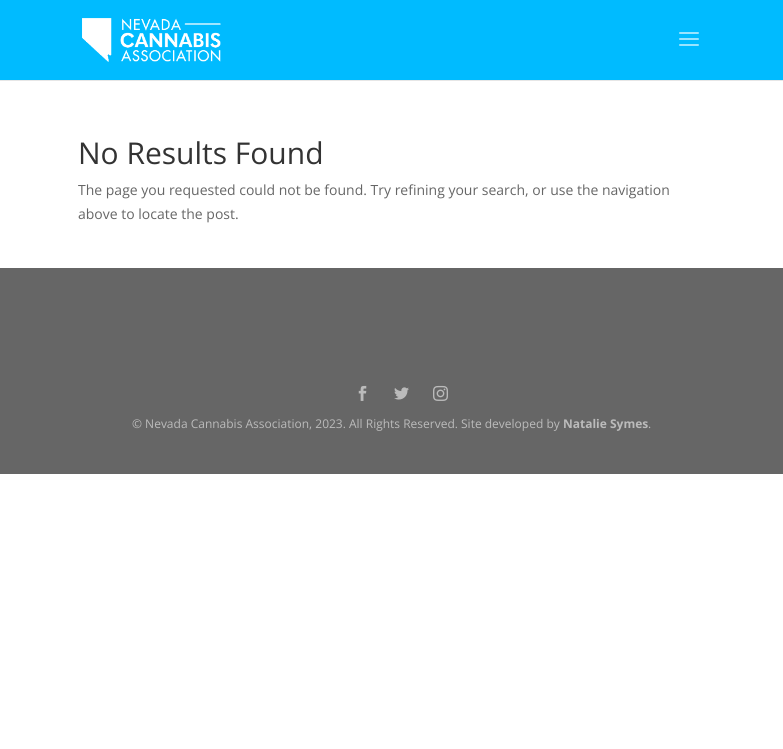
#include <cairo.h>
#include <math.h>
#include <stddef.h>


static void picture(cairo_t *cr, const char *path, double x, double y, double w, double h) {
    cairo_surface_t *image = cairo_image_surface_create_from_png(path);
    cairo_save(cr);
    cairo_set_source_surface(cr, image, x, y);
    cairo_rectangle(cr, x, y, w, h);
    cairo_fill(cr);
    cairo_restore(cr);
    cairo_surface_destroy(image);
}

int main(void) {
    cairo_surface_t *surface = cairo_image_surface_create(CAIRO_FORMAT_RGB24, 783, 749);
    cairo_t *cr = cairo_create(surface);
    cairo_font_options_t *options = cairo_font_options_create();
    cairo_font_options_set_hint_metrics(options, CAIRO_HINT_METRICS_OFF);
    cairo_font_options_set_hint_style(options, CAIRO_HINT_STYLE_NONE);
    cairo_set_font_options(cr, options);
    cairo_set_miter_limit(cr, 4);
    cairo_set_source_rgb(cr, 1, 1, 1);
    cairo_paint(cr);
    cairo_set_source_rgb(cr, 0.902, 0.902, 0.902);
    cairo_rectangle(cr, 0, 80, 783, 1);
    cairo_fill(cr);
    cairo_set_source_rgb(cr, 0, 0.733, 1);
    cairo_rectangle(cr, 0, 0, 783, 80);
    cairo_fill(cr);
    picture(cr, "img1.png", 82, 18, 139, 44);
    picture(cr, "img2.png", 679, 32, 20, 14);
    cairo_select_font_face(cr, "Open Sans", CAIRO_FONT_SLANT_NORMAL, CAIRO_FONT_WEIGHT_NORMAL);
    cairo_set_font_size(cr, 30);
    cairo_set_source_rgb(cr, 0.2, 0.2, 0.2);
    cairo_move_to(cr, 78, 164);
    cairo_show_text(cr, "No Results Found");
    cairo_set_font_size(cr, 14);
    cairo_set_source_rgb(cr, 0.4, 0.4, 0.4);
    cairo_move_to(cr, 78, 195);
    cairo_show_text(cr, "The page you requested could not be found. Try refining your search, or use the navigation");
    cairo_move_to(cr, 78, 219);
    cairo_show_text(cr, "above to locate the post.");
    cairo_rectangle(cr, 0, 268, 783, 206);
    cairo_fill(cr);
    picture(cr, "img3.png", 358, 385, 9, 16);
    picture(cr, "img4.png", 394, 387, 15, 13);
    picture(cr, "img5.png", 433, 385, 15, 16);
    cairo_set_font_size(cr, 12);
    cairo_set_source_rgb(cr, 0.733, 0.733, 0.733);
    cairo_move_to(cr, 132, 428);
    cairo_show_text(cr, "© Nevada Cannabis Association, 2023. All Rights Reserved. Site developed by");
    cairo_select_font_face(cr, "Open Sans", CAIRO_FONT_SLANT_NORMAL, CAIRO_FONT_WEIGHT_BOLD);
    cairo_move_to(cr, 563, 428);
    cairo_show_text(cr, "Natalie Symes");
    cairo_select_font_face(cr, "Open Sans", CAIRO_FONT_SLANT_NORMAL, CAIRO_FONT_WEIGHT_NORMAL);
    cairo_move_to(cr, 648, 428);
    cairo_show_text(cr, ".");
    cairo_surface_write_to_png(surface, "page.png");
    cairo_font_options_destroy(options);
    cairo_destroy(cr);
    cairo_surface_destroy(surface);
    return 0;
}
